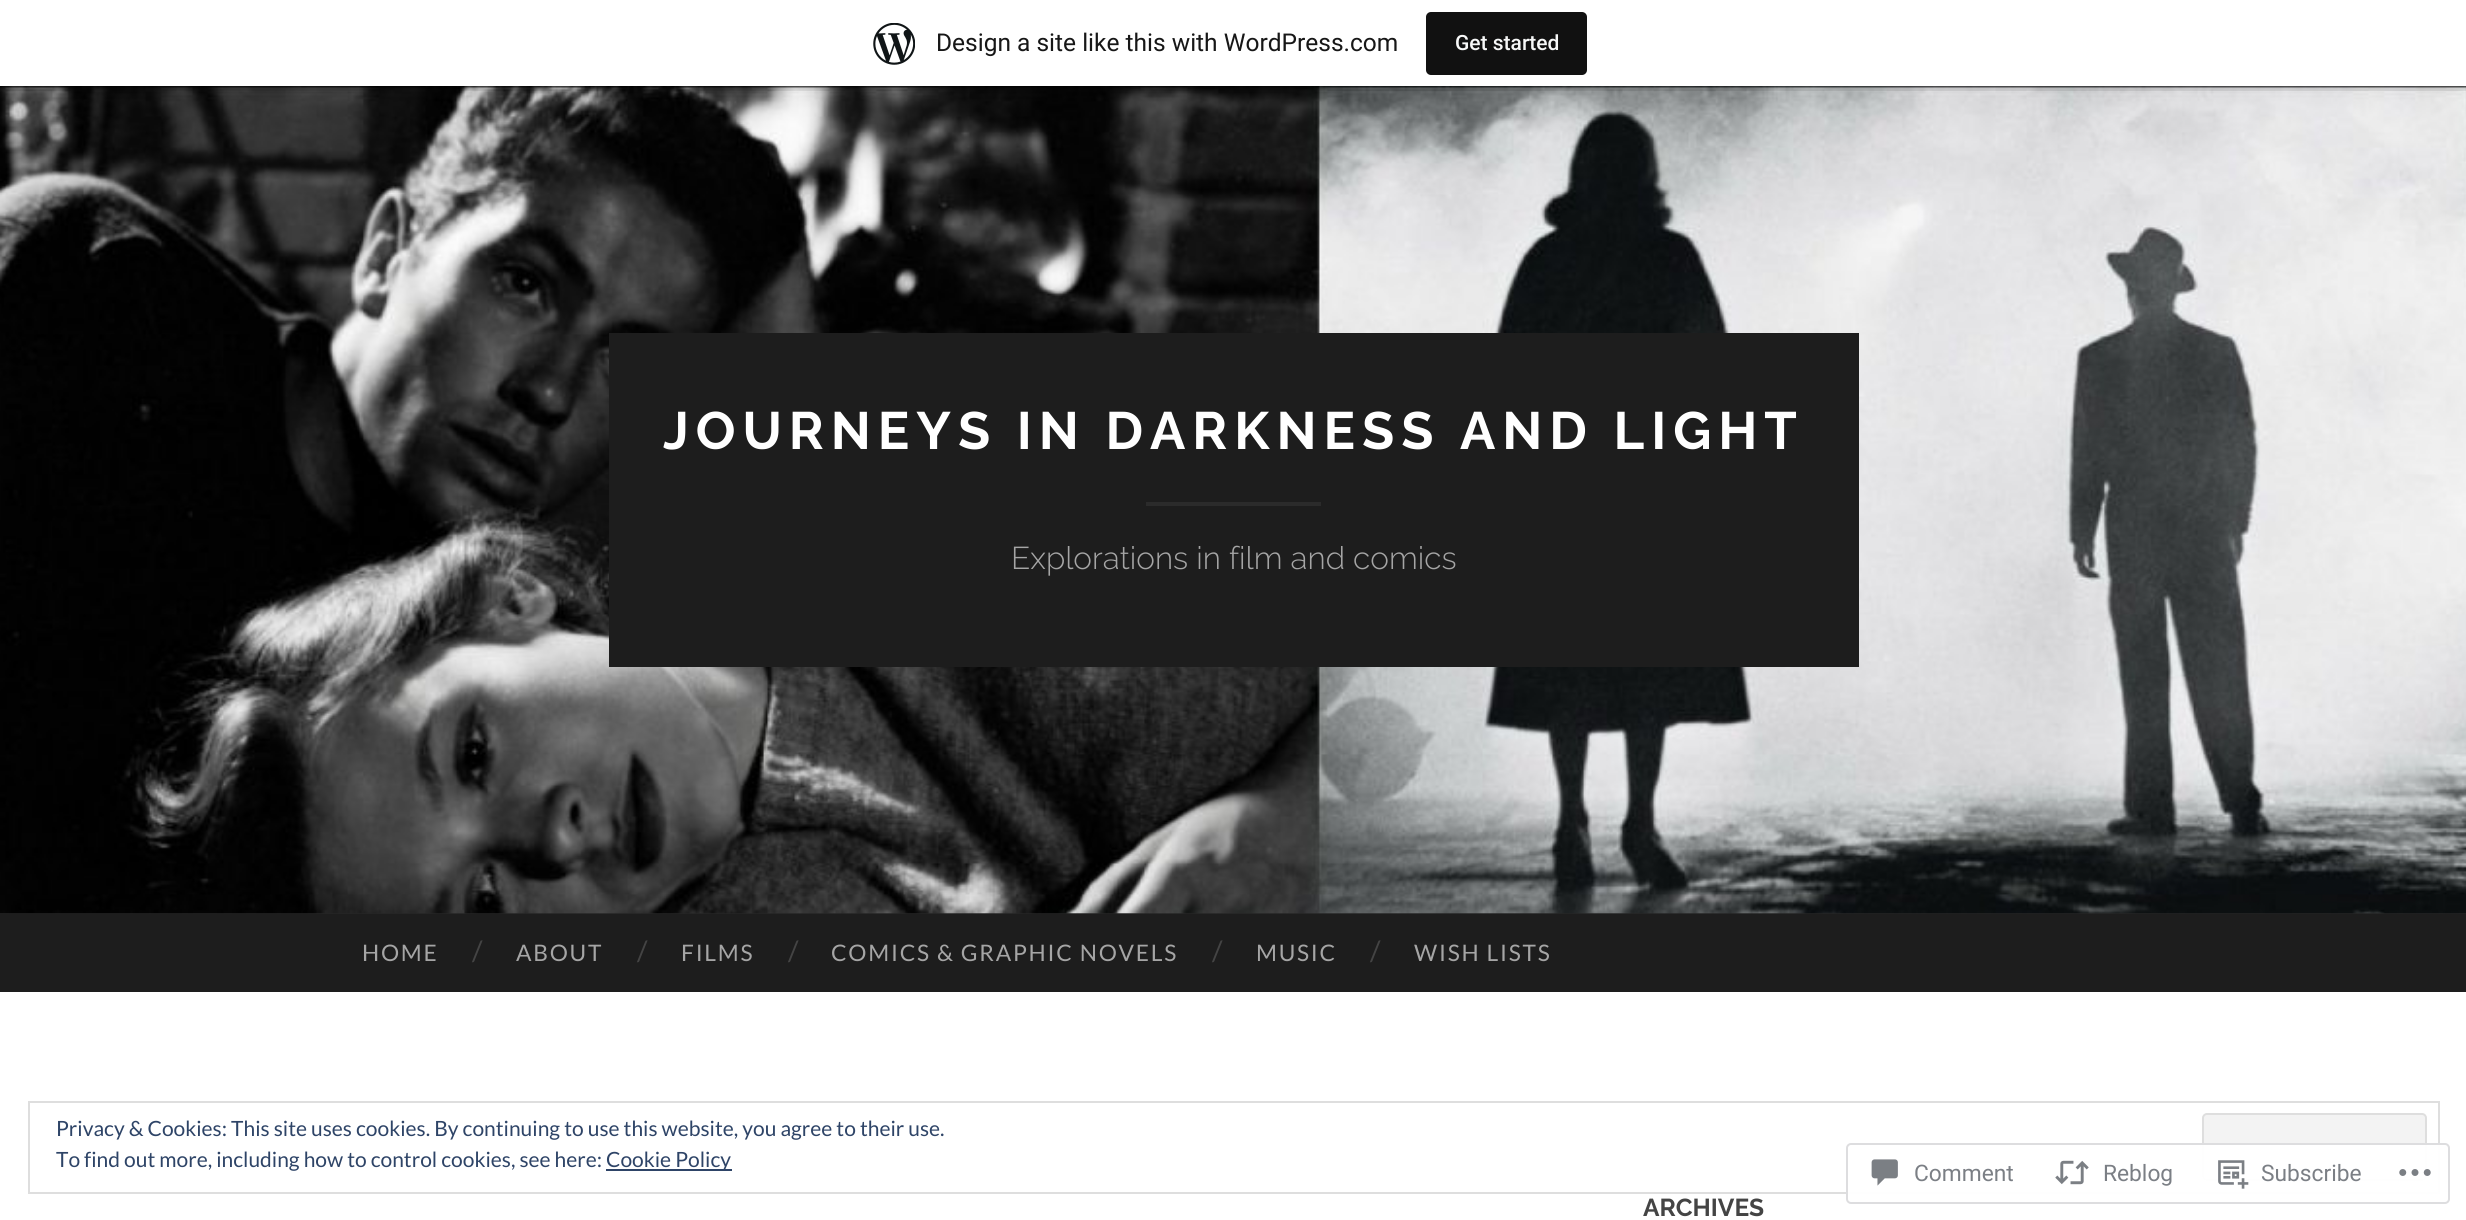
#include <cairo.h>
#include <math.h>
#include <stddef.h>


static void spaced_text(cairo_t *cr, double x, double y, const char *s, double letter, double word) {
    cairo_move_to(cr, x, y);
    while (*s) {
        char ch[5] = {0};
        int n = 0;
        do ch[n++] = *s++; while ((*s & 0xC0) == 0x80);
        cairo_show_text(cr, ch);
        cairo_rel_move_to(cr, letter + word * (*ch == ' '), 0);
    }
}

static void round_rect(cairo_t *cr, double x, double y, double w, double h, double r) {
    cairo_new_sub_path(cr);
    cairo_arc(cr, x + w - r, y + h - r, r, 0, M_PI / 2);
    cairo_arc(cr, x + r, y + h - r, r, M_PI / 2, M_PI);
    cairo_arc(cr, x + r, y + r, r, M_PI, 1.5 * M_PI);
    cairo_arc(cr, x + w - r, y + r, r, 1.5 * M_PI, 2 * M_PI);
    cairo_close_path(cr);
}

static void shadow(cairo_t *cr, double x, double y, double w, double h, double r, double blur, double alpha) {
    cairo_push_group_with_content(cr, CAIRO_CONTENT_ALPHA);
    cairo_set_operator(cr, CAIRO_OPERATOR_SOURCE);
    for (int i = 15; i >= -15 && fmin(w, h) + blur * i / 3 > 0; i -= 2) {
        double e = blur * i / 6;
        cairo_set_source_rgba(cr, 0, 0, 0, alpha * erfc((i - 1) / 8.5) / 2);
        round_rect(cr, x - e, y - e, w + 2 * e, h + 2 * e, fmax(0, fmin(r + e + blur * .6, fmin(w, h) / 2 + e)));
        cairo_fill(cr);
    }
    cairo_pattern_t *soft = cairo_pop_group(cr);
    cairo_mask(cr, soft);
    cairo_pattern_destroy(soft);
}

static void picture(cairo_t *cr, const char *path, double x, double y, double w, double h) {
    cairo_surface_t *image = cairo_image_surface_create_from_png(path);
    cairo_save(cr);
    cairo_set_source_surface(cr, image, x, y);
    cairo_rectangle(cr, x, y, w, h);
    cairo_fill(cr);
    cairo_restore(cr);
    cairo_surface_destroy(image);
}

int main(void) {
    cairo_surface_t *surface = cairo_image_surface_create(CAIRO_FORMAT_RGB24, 2466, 1220);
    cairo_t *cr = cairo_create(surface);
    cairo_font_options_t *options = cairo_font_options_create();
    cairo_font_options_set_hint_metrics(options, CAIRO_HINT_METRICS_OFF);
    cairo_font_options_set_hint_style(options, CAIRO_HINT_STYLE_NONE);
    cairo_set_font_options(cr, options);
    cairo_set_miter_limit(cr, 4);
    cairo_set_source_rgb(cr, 1, 1, 1);
    cairo_paint(cr);
    cairo_set_source_rgb(cr, 0.149, 0.149, 0.149);
    cairo_rectangle(cr, 0, 913, 2466, 1);
    cairo_fill(cr);
    picture(cr, "img2.png", 0, 86, 2466, 828);
    cairo_set_source_rgb(cr, 0, 0, 0);
    shadow(cr, 0, 2, 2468, 86, 0, 2, 0.05);
    cairo_set_source_rgba(cr, 0, 0, 0, 0.08);
    cairo_new_path(cr);
    cairo_move_to(cr, 2, 86);
    cairo_line_to(cr, 2, 91);
    cairo_line_to(cr, 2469, 91);
    cairo_line_to(cr, 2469, 5);
    cairo_line_to(cr, 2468, 5);
    cairo_line_to(cr, 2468, 86);
    cairo_close_path(cr);
    cairo_fill(cr);
    cairo_set_source_rgb(cr, 1, 1, 1);
    cairo_rectangle(cr, 0, 0, 2466, 86);
    cairo_fill(cr);
    picture(cr, "img1.png", 873, 23, 42, 42);
    cairo_select_font_face(cr, "Roboto", CAIRO_FONT_SLANT_NORMAL, CAIRO_FONT_WEIGHT_NORMAL);
    cairo_set_font_size(cr, 24.5);
    cairo_set_source_rgb(cr, 0.09, 0.09, 0.09);
    cairo_move_to(cr, 936, 51);
    cairo_show_text(cr, "Design a site like this with WordPress.com");
    cairo_set_source_rgb(cr, 0.067, 0.067, 0.067);
    round_rect(cr, 1426, 12, 161, 63, 5);
    cairo_fill(cr);
    cairo_select_font_face(cr, "Roboto Medium", CAIRO_FONT_SLANT_NORMAL, CAIRO_FONT_WEIGHT_NORMAL);
    cairo_set_font_size(cr, 21);
    cairo_set_source_rgb(cr, 0.965, 0.969, 0.969);
    cairo_move_to(cr, 1455, 50);
    cairo_show_text(cr, "Get started");
    cairo_set_source_rgb(cr, 0.114, 0.114, 0.114);
    cairo_rectangle(cr, 609, 333, 1250, 334);
    cairo_fill(cr);
    cairo_select_font_face(cr, "Raleway", CAIRO_FONT_SLANT_NORMAL, CAIRO_FONT_WEIGHT_BOLD);
    cairo_set_font_size(cr, 52.5);
    cairo_set_source_rgb(cr, 1, 1, 1);
    spaced_text(cr, 663, 449, "JOURNEYS IN DARKNESS AND LIGHT", 7, 0);
    cairo_set_source_rgb(cr, 0.169, 0.169, 0.169);
    cairo_rectangle(cr, 1146, 502, 175, 4);
    cairo_fill(cr);
    cairo_select_font_face(cr, "Raleway Light", CAIRO_FONT_SLANT_NORMAL, CAIRO_FONT_WEIGHT_NORMAL);
    cairo_set_font_size(cr, 31.5);
    cairo_set_source_rgb(cr, 0.647, 0.647, 0.647);
    cairo_move_to(cr, 1011, 569);
    cairo_show_text(cr, "Explorations in film and comics");
    cairo_set_source_rgb(cr, 0.114, 0.114, 0.114);
    cairo_rectangle(cr, 0, 914, 2466, 78);
    cairo_fill(cr);
    cairo_select_font_face(cr, "Lato", CAIRO_FONT_SLANT_NORMAL, CAIRO_FONT_WEIGHT_NORMAL);
    cairo_set_font_size(cr, 22.75);
    cairo_set_source_rgb(cr, 0.647, 0.647, 0.647);
    spaced_text(cr, 362, 961, "HOME", 1.75, 0);
    cairo_set_font_size(cr, 28);
    cairo_set_source_rgb(cr, 0.267, 0.267, 0.267);
    cairo_move_to(cr, 472, 961);
    cairo_show_text(cr, "/");
    cairo_set_font_size(cr, 22.75);
    cairo_set_source_rgb(cr, 0.647, 0.647, 0.647);
    spaced_text(cr, 516, 961, "ABOUT", 1.75, 0);
    cairo_set_font_size(cr, 28);
    cairo_set_source_rgb(cr, 0.267, 0.267, 0.267);
    cairo_move_to(cr, 637, 961);
    cairo_show_text(cr, "/");
    cairo_set_font_size(cr, 22.75);
    cairo_set_source_rgb(cr, 0.647, 0.647, 0.647);
    spaced_text(cr, 681, 961, "FILMS", 1.75, 0);
    cairo_set_font_size(cr, 28);
    cairo_set_source_rgb(cr, 0.267, 0.267, 0.267);
    cairo_move_to(cr, 788, 961);
    cairo_show_text(cr, "/");
    cairo_set_font_size(cr, 22.75);
    cairo_set_source_rgb(cr, 0.647, 0.647, 0.647);
    spaced_text(cr, 831, 961, "COMICS & GRAPHIC NOVELS", 1.75, 0);
    cairo_set_font_size(cr, 28);
    cairo_set_source_rgb(cr, 0.267, 0.267, 0.267);
    cairo_move_to(cr, 1212, 961);
    cairo_show_text(cr, "/");
    cairo_set_font_size(cr, 22.75);
    cairo_set_source_rgb(cr, 0.647, 0.647, 0.647);
    spaced_text(cr, 1256, 961, "MUSIC", 1.75, 0);
    cairo_set_font_size(cr, 28);
    cairo_set_source_rgb(cr, 0.267, 0.267, 0.267);
    cairo_move_to(cr, 1370, 961);
    cairo_show_text(cr, "/");
    cairo_set_font_size(cr, 22.75);
    cairo_set_source_rgb(cr, 0.647, 0.647, 0.647);
    spaced_text(cr, 1414, 961, "WISH LISTS", 1.75, 0);
    cairo_select_font_face(cr, "Raleway", CAIRO_FONT_SLANT_NORMAL, CAIRO_FONT_WEIGHT_BOLD);
    cairo_set_font_size(cr, 24.5);
    cairo_set_source_rgb(cr, 0.267, 0.267, 0.267);
    cairo_move_to(cr, 1643, 1216);
    cairo_show_text(cr, "ARCHIVES");
    cairo_rectangle(cr, 29, 1102, 2410, 91);
    cairo_set_source_rgb(cr, 0.871, 0.871, 0.871);
    cairo_stroke(cr);
    cairo_select_font_face(cr, "Lato", CAIRO_FONT_SLANT_NORMAL, CAIRO_FONT_WEIGHT_NORMAL);
    cairo_set_font_size(cr, 21);
    cairo_set_source_rgb(cr, 0.18, 0.267, 0.404);
    cairo_move_to(cr, 56, 1136);
    cairo_show_text(cr, "Privacy & Cookies: This site uses cookies. By continuing to use this website, you agree to their use.");
    cairo_set_source_rgb(cr, 0.953, 0.953, 0.953);
    round_rect(cr, 2203, 1114, 223, 66, 4);
    cairo_fill_preserve(cr);
    cairo_set_source_rgb(cr, 0.871, 0.871, 0.871);
    cairo_stroke(cr);
    cairo_set_source_rgb(cr, 0.18, 0.267, 0.404);
    cairo_move_to(cr, 56, 1167);
    cairo_show_text(cr, "To find out more, including how to control cookies, see here:");
    cairo_rectangle(cr, 606, 1169, 126, 2);
    cairo_fill(cr);
    cairo_move_to(cr, 606, 1167);
    cairo_show_text(cr, "Cookie Policy");
    cairo_set_source_rgba(cr, 1, 1, 1, 0.98);
    round_rect(cr, 1846, 1143, 604, 61, 5);
    cairo_fill(cr);
    round_rect(cr, 1847, 1144, 602, 59, 4);
    cairo_set_source_rgba(cr, 0.863, 0.863, 0.871, 0.98);
    cairo_stroke(cr);
    picture(cr, "img3.png", 1871, 1159, 27, 27);
    cairo_select_font_face(cr, "Roboto", CAIRO_FONT_SLANT_NORMAL, CAIRO_FONT_WEIGHT_NORMAL);
    cairo_set_font_size(cr, 22.75);
    cairo_set_source_rgb(cr, 0.482, 0.498, 0.522);
    cairo_move_to(cr, 1914, 1181);
    cairo_show_text(cr, "Comment");
    picture(cr, "img4.png", 2055, 1160, 34, 25);
    cairo_move_to(cr, 2103, 1181);
    cairo_show_text(cr, "Reblog");
    picture(cr, "img5.png", 2218, 1160, 31, 29);
    cairo_move_to(cr, 2261, 1181);
    cairo_show_text(cr, "Subscribe");
    picture(cr, "img6.png", 2399, 1169, 32, 7);
    cairo_surface_write_to_png(surface, "page.png");
    cairo_font_options_destroy(options);
    cairo_destroy(cr);
    cairo_surface_destroy(surface);
    return 0;
}
